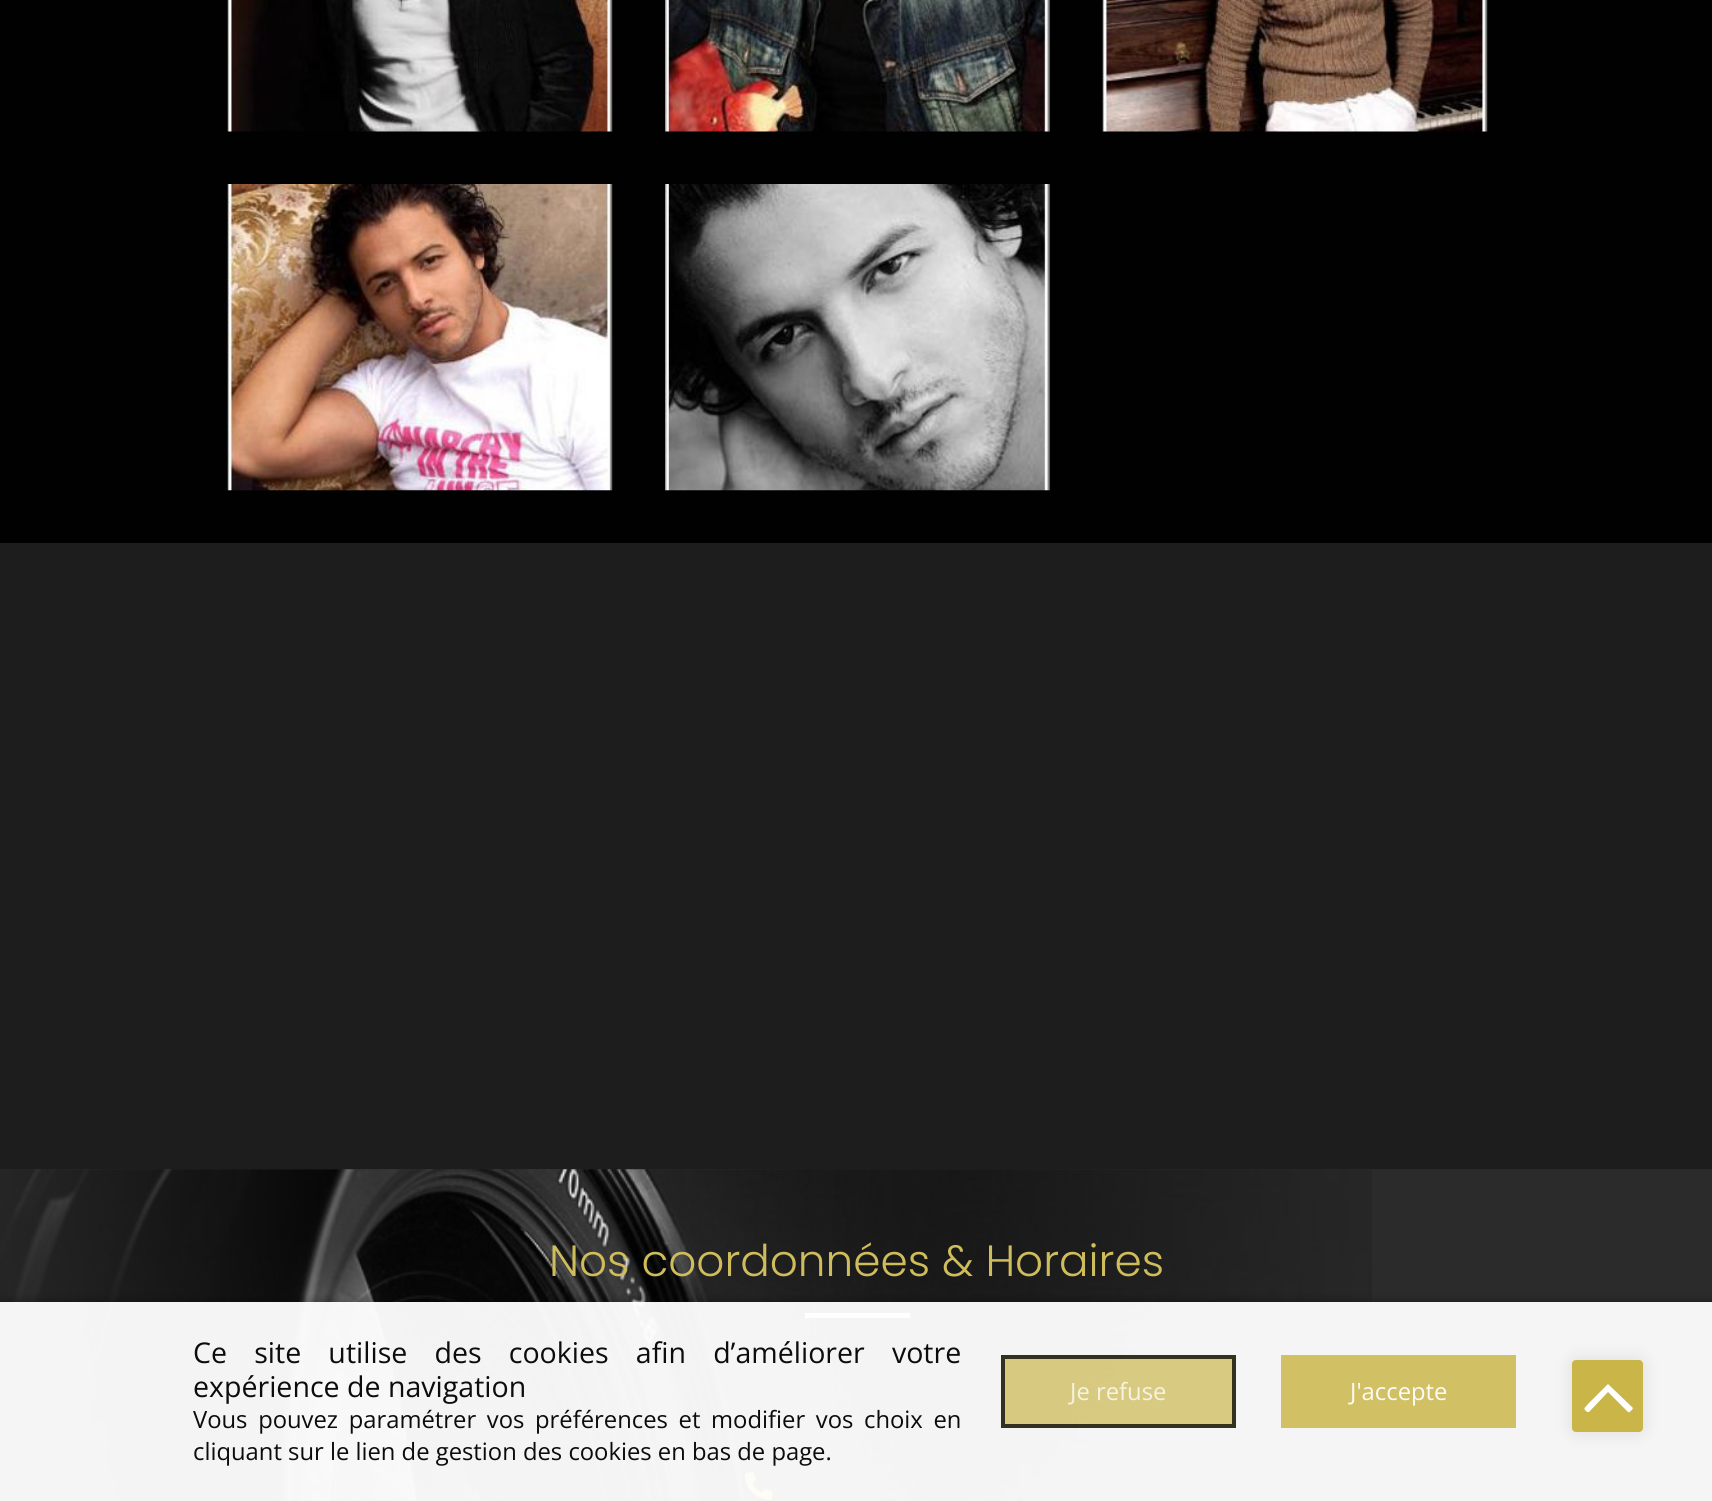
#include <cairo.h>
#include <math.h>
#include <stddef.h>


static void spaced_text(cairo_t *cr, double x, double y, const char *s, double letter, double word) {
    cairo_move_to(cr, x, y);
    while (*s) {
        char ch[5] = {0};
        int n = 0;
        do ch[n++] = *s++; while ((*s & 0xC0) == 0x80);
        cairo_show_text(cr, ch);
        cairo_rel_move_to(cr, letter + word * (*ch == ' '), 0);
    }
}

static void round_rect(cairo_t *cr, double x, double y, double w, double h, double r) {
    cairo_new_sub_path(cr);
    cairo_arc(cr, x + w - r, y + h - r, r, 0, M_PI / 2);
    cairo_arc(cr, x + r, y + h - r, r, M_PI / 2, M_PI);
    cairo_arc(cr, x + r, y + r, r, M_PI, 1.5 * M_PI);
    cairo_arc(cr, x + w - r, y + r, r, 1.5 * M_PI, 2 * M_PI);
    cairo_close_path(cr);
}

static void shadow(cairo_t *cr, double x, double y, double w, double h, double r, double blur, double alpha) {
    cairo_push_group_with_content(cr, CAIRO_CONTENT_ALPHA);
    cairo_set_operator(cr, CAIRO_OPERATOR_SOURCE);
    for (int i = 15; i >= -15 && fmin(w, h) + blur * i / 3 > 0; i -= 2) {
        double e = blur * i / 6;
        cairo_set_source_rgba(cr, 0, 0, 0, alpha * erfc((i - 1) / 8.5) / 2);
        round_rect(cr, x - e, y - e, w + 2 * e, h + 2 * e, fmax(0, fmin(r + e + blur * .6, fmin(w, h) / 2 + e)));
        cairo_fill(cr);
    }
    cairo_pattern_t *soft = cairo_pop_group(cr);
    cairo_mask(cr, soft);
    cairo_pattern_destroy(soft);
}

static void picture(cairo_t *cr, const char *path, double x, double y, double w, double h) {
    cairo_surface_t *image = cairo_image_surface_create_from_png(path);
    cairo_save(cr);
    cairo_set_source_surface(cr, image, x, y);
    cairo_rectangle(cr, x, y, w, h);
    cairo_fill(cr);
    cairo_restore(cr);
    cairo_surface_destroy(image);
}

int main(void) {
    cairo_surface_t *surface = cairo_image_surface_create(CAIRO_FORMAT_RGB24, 1712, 1501);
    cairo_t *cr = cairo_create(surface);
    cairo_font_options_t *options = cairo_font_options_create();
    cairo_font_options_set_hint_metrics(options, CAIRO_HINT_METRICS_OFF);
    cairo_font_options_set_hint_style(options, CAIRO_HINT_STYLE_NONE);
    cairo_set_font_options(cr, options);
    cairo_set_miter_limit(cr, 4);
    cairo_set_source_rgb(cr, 0.118, 0.114, 0.118);
    cairo_paint(cr);
    cairo_set_source_rgb(cr, 0.004, 0.004, 0.004);
    cairo_rectangle(cr, 0, 0, 1712, 543);
    cairo_fill(cr);
    picture(cr, "img1.png", 227, 0, 386, 132);
    picture(cr, "img2.png", 665, 0, 385, 132);
    picture(cr, "img3.png", 1102, 0, 386, 132);
    picture(cr, "img4.png", 227, 184, 386, 307);
    picture(cr, "img5.png", 665, 184, 385, 307);
    cairo_set_source_rgb(cr, 0.169, 0.169, 0.169);
    cairo_rectangle(cr, 0, 1169, 1712, 332);
    cairo_fill(cr);
    picture(cr, "img6.png", 0, 1169, 1372, 332);
    cairo_set_source_rgb(cr, 1, 1, 1);
    cairo_rectangle(cr, 805, 1313, 105, 5);
    cairo_fill(cr);
    picture(cr, "img7.png", 744, 1471, 29, 29);
    cairo_save(cr);
    cairo_rectangle(cr, 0, 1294, 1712, 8);
    cairo_clip(cr);
    cairo_set_source_rgb(cr, 0, 0, 0);
    shadow(cr, 0, 1302, 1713, 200, 0, 5, 0.38);
    cairo_restore(cr);
    cairo_set_source_rgba(cr, 1, 1, 1, 0.95);
    cairo_rectangle(cr, 0, 1302, 1712, 199);
    cairo_fill(cr);
    cairo_set_source_rgb(cr, 0, 0, 0);
    shadow(cr, 1572, 1360, 71, 72, 4, 9, 0.1);
    cairo_set_source_rgb(cr, 0.788, 0.71, 0.282);
    round_rect(cr, 1572, 1360, 71, 72, 4);
    cairo_fill(cr);
    cairo_set_source_rgb(cr, 1, 1, 1);
    cairo_new_path(cr);
    cairo_move_to(cr, 1585, 1410);
    cairo_curve_to(cr, 1583, 1408, 1587, 1406, 1588, 1404);
    cairo_line_to(cr, 1608, 1384);
    cairo_line_to(cr, 1609, 1385);
    cairo_line_to(cr, 1633, 1408);
    cairo_line_to(cr, 1632, 1410);
    cairo_curve_to(cr, 1631, 1410, 1630, 1413, 1628, 1412);
    cairo_line_to(cr, 1608, 1392);
    cairo_line_to(cr, 1589, 1412);
    cairo_curve_to(cr, 1588, 1412, 1587, 1412, 1587, 1412);
    cairo_close_path(cr);
    cairo_fill(cr);
    cairo_select_font_face(cr, "Poppins Light", CAIRO_FONT_SLANT_NORMAL, CAIRO_FONT_WEIGHT_NORMAL);
    cairo_set_font_size(cr, 43.75);
    cairo_set_source_rgb(cr, 0.812, 0.741, 0.361);
    cairo_move_to(cr, 549, 1276);
    cairo_show_text(cr, "Nos coordonnées & Horaires");
    cairo_select_font_face(cr, "Open Sans", CAIRO_FONT_SLANT_NORMAL, CAIRO_FONT_WEIGHT_NORMAL);
    cairo_set_font_size(cr, 28.55);
    cairo_set_source_rgb(cr, 0.047, 0.047, 0.047);
    spaced_text(cr, 193, 1363, "Ce site utilise des cookies afin d’améliorer votre", 0, 19.75);
    cairo_move_to(cr, 193, 1397);
    cairo_show_text(cr, "expérience de navigation");
    cairo_set_font_size(cr, 23.8);
    spaced_text(cr, 193, 1428, "Vous pouvez paramétrer vos préférences et modifier vos choix en", 0, 4.5);
    cairo_move_to(cr, 193, 1460);
    cairo_show_text(cr, "cliquant sur le lien de gestion des cookies en bas de page.");
    cairo_set_source_rgba(cr, 0.812, 0.741, 0.361, 0.76);
    cairo_rectangle(cr, 1001, 1355, 235, 73);
    cairo_fill(cr);
    cairo_rectangle(cr, 1003, 1357, 231, 69);
    cairo_set_source_rgba(cr, 0, 0, 0, 0.76);
    cairo_set_line_width(cr, 4);
    cairo_stroke(cr);
    cairo_set_source_rgb(cr, 0.965, 0.949, 0.882);
    cairo_move_to(cr, 1070, 1400);
    cairo_show_text(cr, "Je refuse");
    cairo_set_source_rgb(cr, 0.82, 0.753, 0.392);
    cairo_rectangle(cr, 1281, 1355, 235, 73);
    cairo_fill(cr);
    cairo_set_source_rgb(cr, 0.992, 0.988, 0.969);
    cairo_move_to(cr, 1350, 1400);
    cairo_show_text(cr, "J'accepte");
    cairo_surface_write_to_png(surface, "page.png");
    cairo_font_options_destroy(options);
    cairo_destroy(cr);
    cairo_surface_destroy(surface);
    return 0;
}
